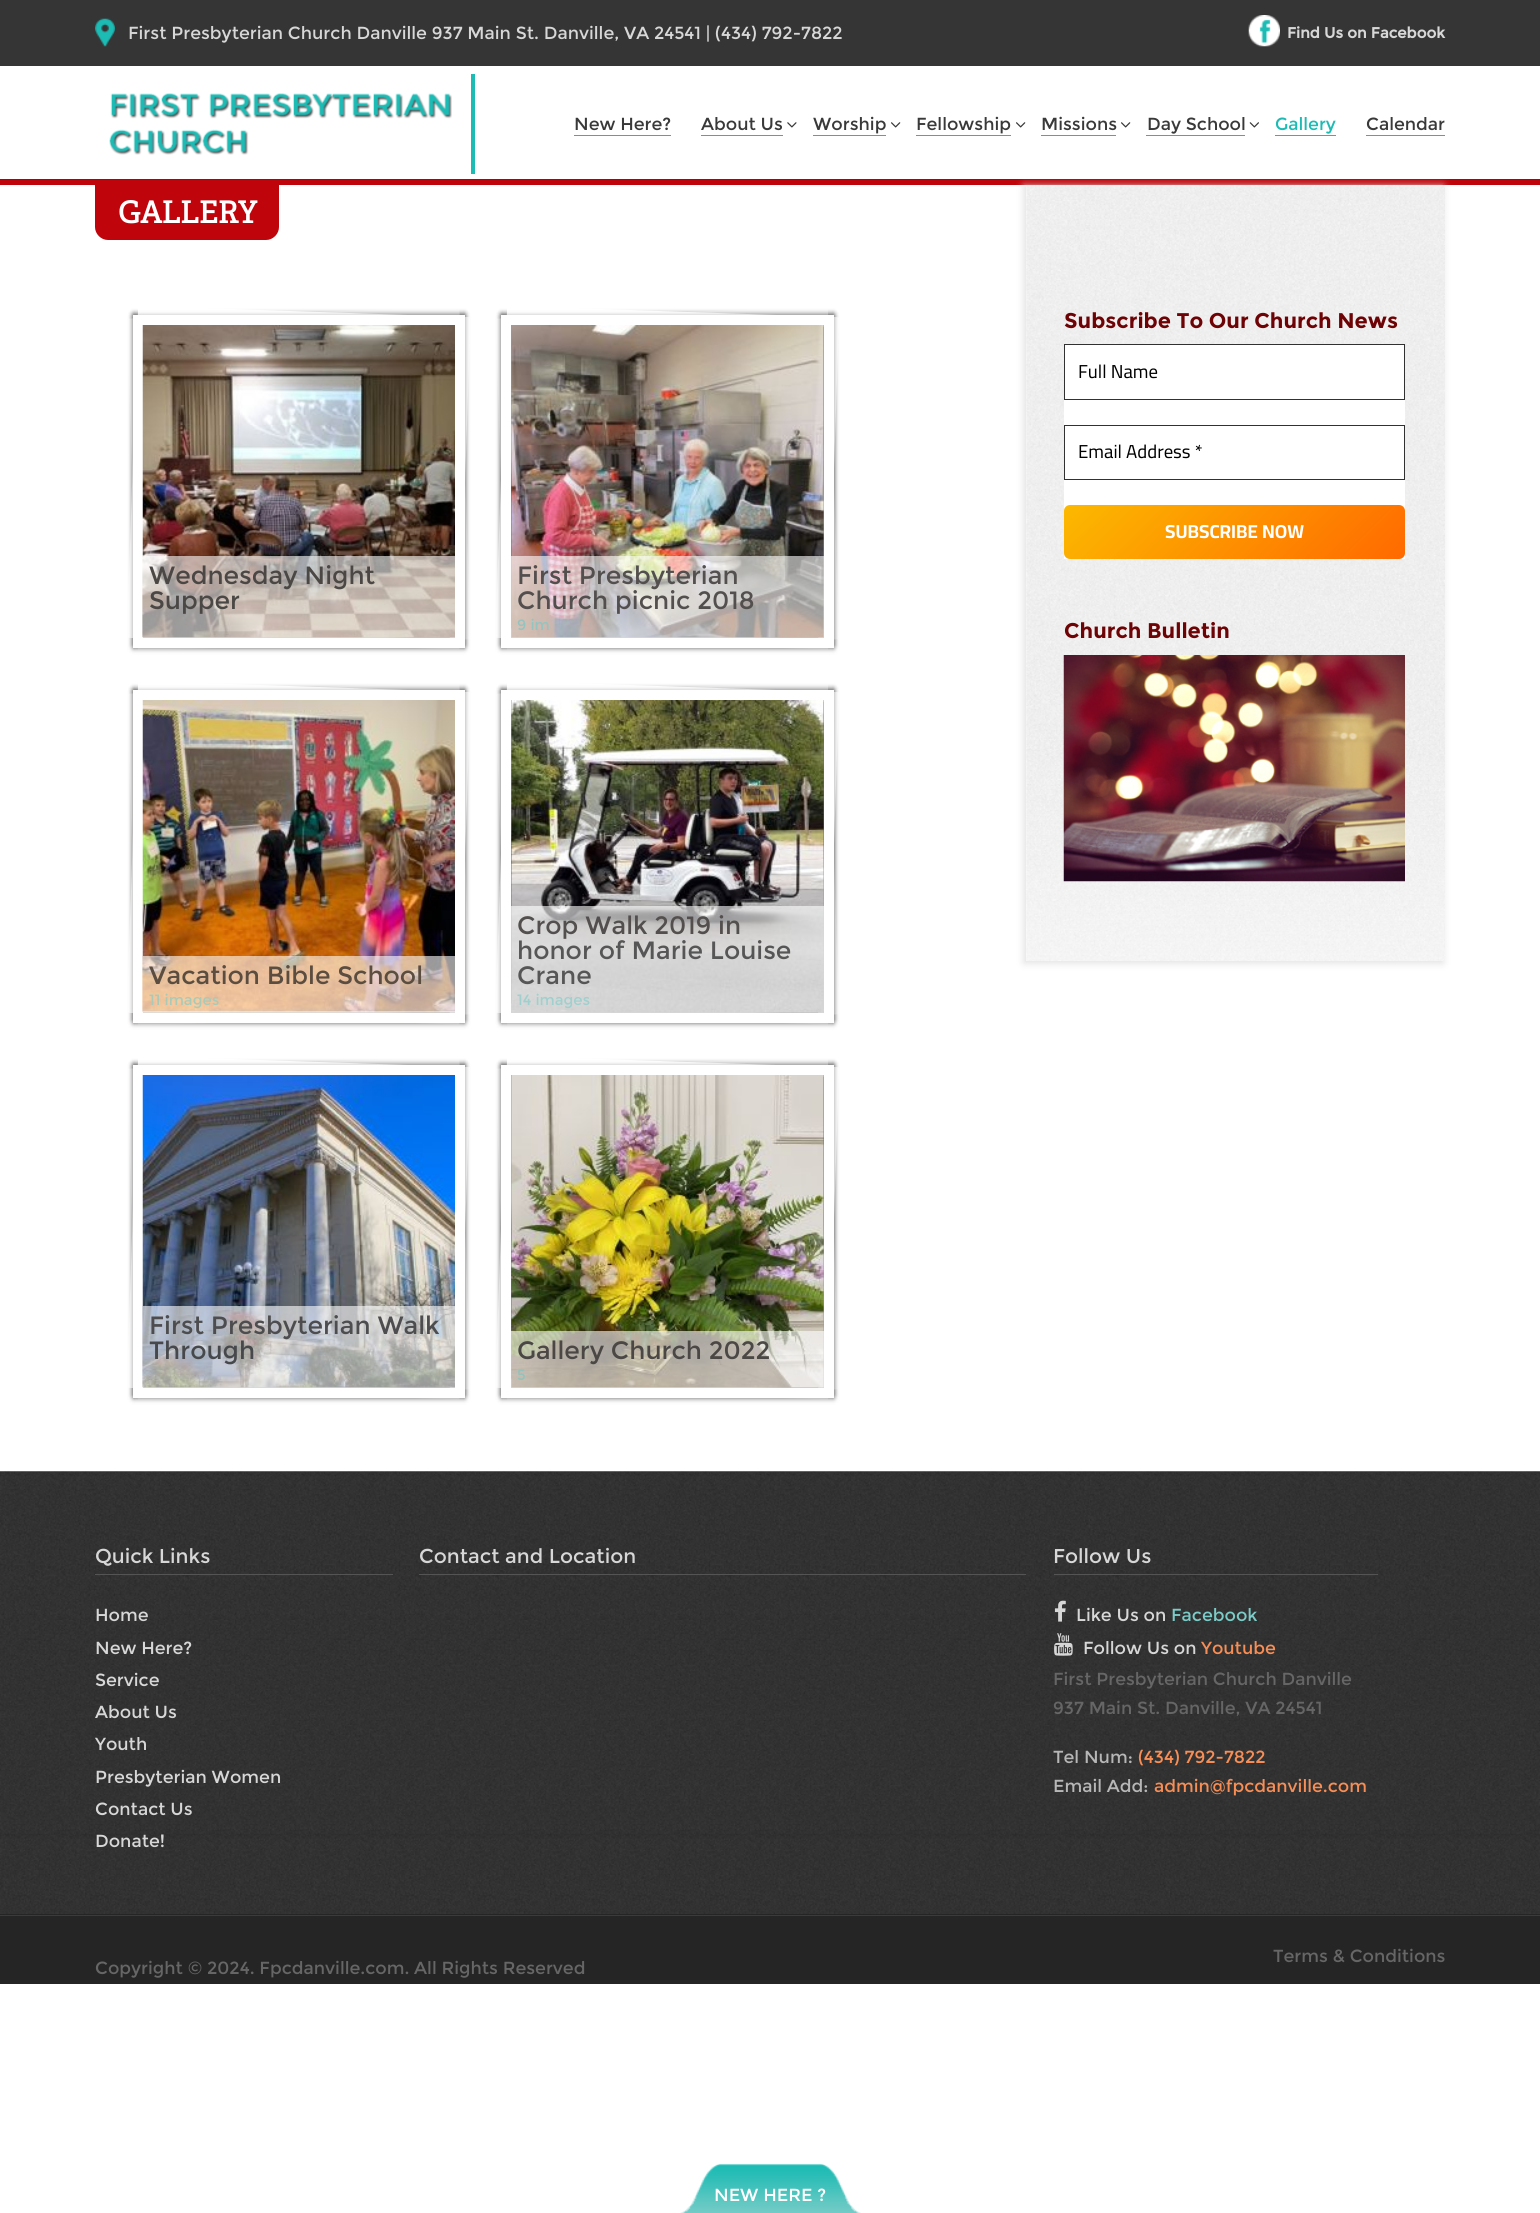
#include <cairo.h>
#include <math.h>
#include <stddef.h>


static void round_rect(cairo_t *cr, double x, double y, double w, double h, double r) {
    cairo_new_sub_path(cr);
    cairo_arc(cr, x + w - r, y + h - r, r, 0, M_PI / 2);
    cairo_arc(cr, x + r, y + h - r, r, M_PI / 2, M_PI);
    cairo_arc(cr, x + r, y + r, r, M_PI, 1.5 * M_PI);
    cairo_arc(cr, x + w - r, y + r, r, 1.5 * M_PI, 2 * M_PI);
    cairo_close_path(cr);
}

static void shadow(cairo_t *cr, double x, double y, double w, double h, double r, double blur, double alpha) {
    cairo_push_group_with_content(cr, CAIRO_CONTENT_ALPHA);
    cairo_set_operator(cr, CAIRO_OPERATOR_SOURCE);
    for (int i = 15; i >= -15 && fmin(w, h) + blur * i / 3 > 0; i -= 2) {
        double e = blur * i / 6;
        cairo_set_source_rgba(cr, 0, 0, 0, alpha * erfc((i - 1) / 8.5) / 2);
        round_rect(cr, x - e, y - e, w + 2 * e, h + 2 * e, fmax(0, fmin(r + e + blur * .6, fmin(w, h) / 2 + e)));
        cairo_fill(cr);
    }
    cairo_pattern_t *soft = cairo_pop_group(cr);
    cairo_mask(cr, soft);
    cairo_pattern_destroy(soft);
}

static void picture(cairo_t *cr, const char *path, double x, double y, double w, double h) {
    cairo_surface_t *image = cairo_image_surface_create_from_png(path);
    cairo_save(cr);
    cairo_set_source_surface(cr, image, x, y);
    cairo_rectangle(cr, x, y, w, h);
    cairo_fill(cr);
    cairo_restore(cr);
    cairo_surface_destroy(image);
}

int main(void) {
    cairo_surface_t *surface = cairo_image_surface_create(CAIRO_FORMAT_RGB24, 1540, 2213);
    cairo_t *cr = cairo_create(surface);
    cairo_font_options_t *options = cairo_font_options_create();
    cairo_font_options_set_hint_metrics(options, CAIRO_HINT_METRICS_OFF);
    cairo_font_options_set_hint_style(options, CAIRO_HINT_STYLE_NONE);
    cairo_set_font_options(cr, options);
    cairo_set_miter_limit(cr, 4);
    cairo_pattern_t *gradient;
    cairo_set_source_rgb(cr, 1, 1, 1);
    cairo_paint(cr);
    cairo_set_source_rgb(cr, 0.208, 0.208, 0.208);
    cairo_rectangle(cr, 0, 0, 1540, 66);
    cairo_fill(cr);
    picture(cr, "img1.png", 95, 18, 20, 29);
    cairo_select_font_face(cr, "Montserrat", CAIRO_FONT_SLANT_NORMAL, CAIRO_FONT_WEIGHT_NORMAL);
    cairo_set_font_size(cr, 17.5);
    cairo_set_source_rgb(cr, 0.843, 0.843, 0.843);
    cairo_move_to(cr, 128, 39);
    cairo_show_text(cr, "First Presbyterian Church Danville 937 Main St. Danville, VA 24541 | (434) 792-7822");
    picture(cr, "img2.png", 1248, 15, 32, 32);
    cairo_select_font_face(cr, "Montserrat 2", CAIRO_FONT_SLANT_NORMAL, CAIRO_FONT_WEIGHT_BOLD);
    cairo_set_font_size(cr, 15);
    cairo_move_to(cr, 1287, 38);
    cairo_show_text(cr, "Find Us on Facebook");
    cairo_set_source_rgb(cr, 0.753, 0.016, 0.043);
    cairo_rectangle(cr, 0, 179, 1540, 6);
    cairo_fill(cr);
    cairo_save(cr);
    cairo_set_fill_rule(cr, CAIRO_FILL_RULE_EVEN_ODD);
    cairo_new_path(cr);
    cairo_move_to(cr, 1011, 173);
    cairo_line_to(cr, 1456, 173);
    cairo_line_to(cr, 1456, 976);
    cairo_line_to(cr, 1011, 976);
    cairo_close_path(cr);
    cairo_move_to(cr, 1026, 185);
    cairo_line_to(cr, 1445, 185);
    cairo_line_to(cr, 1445, 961);
    cairo_line_to(cr, 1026, 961);
    cairo_close_path(cr);
    cairo_clip(cr);
    cairo_set_source_rgb(cr, 0.878, 0.878, 0.878);
    shadow(cr, 1024, 186, 419, 777, 0, 4, 1);
    cairo_restore(cr);
    cairo_set_source_rgba(cr, 0, 0, 0, 0.1);
    cairo_rectangle(cr, 0, 179, 1540, 1);
    cairo_fill(cr);
    cairo_set_source_rgb(cr, 0.11, 0.733, 0.706);
    cairo_rectangle(cr, 471, 74, 4, 100);
    cairo_fill(cr);
    picture(cr, "img3.png", 109, 93, 343, 62);
    cairo_rectangle(cr, 574, 135, 97, 1);
    cairo_fill(cr);
    cairo_select_font_face(cr, "Montserrat", CAIRO_FONT_SLANT_NORMAL, CAIRO_FONT_WEIGHT_NORMAL);
    cairo_set_font_size(cr, 17.5);
    cairo_set_source_rgb(cr, 0.224, 0.224, 0.224);
    cairo_move_to(cr, 574, 130);
    cairo_show_text(cr, "New Here?");
    cairo_set_source_rgb(cr, 0.11, 0.733, 0.706);
    cairo_rectangle(cr, 701, 135, 82, 1);
    cairo_fill(cr);
    cairo_set_source_rgb(cr, 0.224, 0.224, 0.224);
    cairo_move_to(cr, 701, 130);
    cairo_show_text(cr, "About Us");
    picture(cr, "img4.png", 787, 122, 10, 6);
    cairo_set_source_rgb(cr, 0.11, 0.733, 0.706);
    cairo_rectangle(cr, 813, 135, 73, 1);
    cairo_fill(cr);
    cairo_set_source_rgb(cr, 0.224, 0.224, 0.224);
    cairo_move_to(cr, 813, 130);
    cairo_show_text(cr, "Worship");
    picture(cr, "img5.png", 891, 122, 10, 6);
    cairo_set_source_rgb(cr, 0.11, 0.733, 0.706);
    cairo_rectangle(cr, 916, 135, 95, 1);
    cairo_fill(cr);
    cairo_set_source_rgb(cr, 0.224, 0.224, 0.224);
    cairo_move_to(cr, 916, 130);
    cairo_show_text(cr, "Fellowship");
    picture(cr, "img5.png", 1016, 122, 10, 6);
    cairo_set_source_rgb(cr, 0.11, 0.733, 0.706);
    cairo_rectangle(cr, 1041, 135, 75, 1);
    cairo_fill(cr);
    cairo_set_source_rgb(cr, 0.224, 0.224, 0.224);
    cairo_move_to(cr, 1041, 130);
    cairo_show_text(cr, "Missions");
    picture(cr, "img5.png", 1121, 122, 10, 6);
    cairo_set_source_rgb(cr, 0.11, 0.733, 0.706);
    cairo_rectangle(cr, 1146, 135, 99, 1);
    cairo_fill(cr);
    cairo_set_source_rgb(cr, 0.224, 0.224, 0.224);
    cairo_move_to(cr, 1147, 130);
    cairo_show_text(cr, "Day School");
    picture(cr, "img6.png", 1249, 122, 10, 6);
    cairo_set_source_rgb(cr, 0.11, 0.733, 0.706);
    cairo_rectangle(cr, 1275, 135, 61, 1);
    cairo_fill(cr);
    cairo_move_to(cr, 1275, 130);
    cairo_show_text(cr, "Gallery");
    cairo_rectangle(cr, 1366, 135, 79, 1);
    cairo_fill(cr);
    cairo_set_source_rgb(cr, 0.224, 0.224, 0.224);
    cairo_move_to(cr, 1366, 130);
    cairo_show_text(cr, "Calendar");
    cairo_set_source_rgb(cr, 0.753, 0.016, 0.043);
    cairo_new_path(cr);
    cairo_move_to(cr, 95, 185);
    cairo_line_to(cr, 279, 185);
    cairo_line_to(cr, 279, 227);
    cairo_curve_to(cr, 279, 234, 273, 240, 266, 240);
    cairo_line_to(cr, 108, 240);
    cairo_curve_to(cr, 101, 240, 95, 234, 95, 227);
    cairo_close_path(cr);
    cairo_fill(cr);
    cairo_select_font_face(cr, "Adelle", CAIRO_FONT_SLANT_NORMAL, CAIRO_FONT_WEIGHT_BOLD);
    cairo_set_font_size(cr, 30);
    cairo_set_source_rgb(cr, 1, 1, 1);
    cairo_move_to(cr, 118, 223);
    cairo_show_text(cr, "GALLERY");
    cairo_set_source_rgb(cr, 0, 0, 0);
    shadow(cr, 133, 314, 332, 332, 0, 2.5, 0.3);
    cairo_new_path(cr);
    cairo_move_to(cr, 132, 323.5);
    cairo_line_to(cr, 454.5, 312);
    cairo_line_to(cr, 465.5, 634.5);
    cairo_line_to(cr, 143, 645.5);
    cairo_close_path(cr);
    cairo_set_source_rgb(cr, 1, 1, 1);
    cairo_set_line_width(cr, 10);
    cairo_stroke(cr);
    cairo_set_source_rgb(cr, 0, 0, 0);
    shadow(cr, 133, 313, 332, 332, 0, 2.5, 0.3);
    cairo_new_path(cr);
    cairo_move_to(cr, 143, 311);
    cairo_line_to(cr, 465.5, 322);
    cairo_line_to(cr, 454.5, 644.5);
    cairo_line_to(cr, 132, 633);
    cairo_close_path(cr);
    cairo_set_source_rgb(cr, 1, 1, 1);
    cairo_stroke(cr);
    cairo_set_source_rgb(cr, 0, 0, 0);
    shadow(cr, 133, 316, 332, 333, 0, 2.5, 0.4);
    cairo_rectangle(cr, 138, 320, 322, 323);
    cairo_set_source_rgb(cr, 1, 1, 1);
    cairo_stroke(cr);
    picture(cr, "img7.png", 142, 325, 313, 313);
    cairo_set_source_rgba(cr, 1, 1, 1, 0.6);
    cairo_rectangle(cr, 143, 556, 312, 82);
    cairo_fill(cr);
    cairo_select_font_face(cr, "Montserrat", CAIRO_FONT_SLANT_NORMAL, CAIRO_FONT_WEIGHT_NORMAL);
    cairo_set_font_size(cr, 25);
    cairo_set_source_rgb(cr, 0.29, 0.278, 0.271);
    cairo_move_to(cr, 149, 584);
    cairo_show_text(cr, "Wednesday Night");
    cairo_move_to(cr, 149, 609);
    cairo_show_text(cr, "Supper");
    cairo_set_source_rgb(cr, 0, 0, 0);
    shadow(cr, 501, 314, 333, 332, 0, 2.5, 0.3);
    cairo_new_path(cr);
    cairo_move_to(cr, 500.5, 323.5);
    cairo_line_to(cr, 823, 312);
    cairo_line_to(cr, 834, 634.5);
    cairo_line_to(cr, 512, 645.5);
    cairo_close_path(cr);
    cairo_set_source_rgb(cr, 1, 1, 1);
    cairo_stroke(cr);
    cairo_set_source_rgb(cr, 0, 0, 0);
    shadow(cr, 501, 313, 333, 332, 0, 2.5, 0.3);
    cairo_new_path(cr);
    cairo_move_to(cr, 512, 311);
    cairo_line_to(cr, 834, 322);
    cairo_line_to(cr, 823, 644.5);
    cairo_line_to(cr, 500.5, 633);
    cairo_close_path(cr);
    cairo_set_source_rgb(cr, 1, 1, 1);
    cairo_stroke(cr);
    cairo_set_source_rgb(cr, 0, 0, 0);
    shadow(cr, 501, 316, 333, 333, 0, 2.5, 0.4);
    cairo_rectangle(cr, 506, 320, 323, 323);
    cairo_set_source_rgb(cr, 1, 1, 1);
    cairo_stroke(cr);
    picture(cr, "img8.png", 511, 325, 313, 313);
    cairo_set_source_rgba(cr, 1, 1, 1, 0.6);
    cairo_rectangle(cr, 511, 556, 313, 82);
    cairo_fill(cr);
    cairo_set_source_rgb(cr, 0.325, 0.31, 0.306);
    cairo_move_to(cr, 517, 584);
    cairo_show_text(cr, "First Presbyterian");
    cairo_move_to(cr, 517, 609);
    cairo_show_text(cr, "Church picnic 2018");
    cairo_set_font_size(cr, 15);
    cairo_set_source_rgb(cr, 0.584, 0.765, 0.753);
    cairo_move_to(cr, 517, 630);
    cairo_show_text(cr, "9 im");
    cairo_set_source_rgb(cr, 0, 0, 0);
    shadow(cr, 133, 689, 332, 332, 0, 2.5, 0.3);
    cairo_new_path(cr);
    cairo_move_to(cr, 132, 698.5);
    cairo_line_to(cr, 454.5, 687);
    cairo_line_to(cr, 465.5, 1009.5);
    cairo_line_to(cr, 143, 1020.5);
    cairo_close_path(cr);
    cairo_set_source_rgb(cr, 1, 1, 1);
    cairo_stroke(cr);
    cairo_set_source_rgb(cr, 0, 0, 0);
    shadow(cr, 133, 688, 332, 332, 0, 2.5, 0.3);
    cairo_new_path(cr);
    cairo_move_to(cr, 143, 686);
    cairo_line_to(cr, 465.5, 697);
    cairo_line_to(cr, 454.5, 1019.5);
    cairo_line_to(cr, 132, 1008);
    cairo_close_path(cr);
    cairo_set_source_rgb(cr, 1, 1, 1);
    cairo_stroke(cr);
    cairo_set_source_rgb(cr, 0, 0, 0);
    shadow(cr, 133, 691, 332, 333, 0, 2.5, 0.4);
    cairo_rectangle(cr, 138, 695, 322, 323);
    cairo_set_source_rgb(cr, 1, 1, 1);
    cairo_stroke(cr);
    picture(cr, "img9.png", 142, 700, 313, 313);
    cairo_set_source_rgba(cr, 1, 1, 1, 0.6);
    cairo_rectangle(cr, 143, 956, 312, 57);
    cairo_fill(cr);
    cairo_set_font_size(cr, 25);
    cairo_set_source_rgb(cr, 0.357, 0.302, 0.251);
    cairo_move_to(cr, 149, 984);
    cairo_show_text(cr, "Vacation Bible School");
    cairo_set_font_size(cr, 15);
    cairo_set_source_rgb(cr, 0.667, 0.792, 0.718);
    cairo_move_to(cr, 149, 1005);
    cairo_show_text(cr, "11 images");
    cairo_set_source_rgb(cr, 0, 0, 0);
    shadow(cr, 501, 689, 333, 332, 0, 2.5, 0.3);
    cairo_new_path(cr);
    cairo_move_to(cr, 500.5, 698.5);
    cairo_line_to(cr, 823, 687);
    cairo_line_to(cr, 834, 1009.5);
    cairo_line_to(cr, 512, 1020.5);
    cairo_close_path(cr);
    cairo_set_source_rgb(cr, 1, 1, 1);
    cairo_stroke(cr);
    cairo_set_source_rgb(cr, 0, 0, 0);
    shadow(cr, 501, 688, 333, 332, 0, 2.5, 0.3);
    cairo_new_path(cr);
    cairo_move_to(cr, 512, 686);
    cairo_line_to(cr, 834, 697);
    cairo_line_to(cr, 823, 1019.5);
    cairo_line_to(cr, 500.5, 1008);
    cairo_close_path(cr);
    cairo_set_source_rgb(cr, 1, 1, 1);
    cairo_stroke(cr);
    cairo_set_source_rgb(cr, 0, 0, 0);
    shadow(cr, 501, 691, 333, 333, 0, 2.5, 0.4);
    cairo_rectangle(cr, 506, 695, 323, 323);
    cairo_set_source_rgb(cr, 1, 1, 1);
    cairo_stroke(cr);
    picture(cr, "img10.png", 511, 700, 313, 313);
    cairo_set_source_rgba(cr, 1, 1, 1, 0.6);
    cairo_rectangle(cr, 511, 906, 313, 107);
    cairo_fill(cr);
    cairo_set_font_size(cr, 25);
    cairo_set_source_rgb(cr, 0.325, 0.31, 0.306);
    cairo_move_to(cr, 517, 934);
    cairo_show_text(cr, "Crop Walk 2019 in");
    cairo_set_source_rgb(cr, 0.341, 0.337, 0.337);
    cairo_move_to(cr, 517, 959);
    cairo_show_text(cr, "honor of Marie Louise");
    cairo_move_to(cr, 517, 984);
    cairo_show_text(cr, "Crane");
    cairo_set_font_size(cr, 15);
    cairo_set_source_rgb(cr, 0.624, 0.816, 0.804);
    cairo_move_to(cr, 517, 1005);
    cairo_show_text(cr, "14 images");
    cairo_set_source_rgb(cr, 0, 0, 0);
    shadow(cr, 133, 1064, 332, 332, 0, 2.5, 0.3);
    cairo_new_path(cr);
    cairo_move_to(cr, 132, 1073.5);
    cairo_line_to(cr, 454.5, 1062);
    cairo_line_to(cr, 465.5, 1384.5);
    cairo_line_to(cr, 143, 1395.5);
    cairo_close_path(cr);
    cairo_set_source_rgb(cr, 1, 1, 1);
    cairo_stroke(cr);
    cairo_set_source_rgb(cr, 0, 0, 0);
    shadow(cr, 133, 1063, 332, 332, 0, 2.5, 0.3);
    cairo_new_path(cr);
    cairo_move_to(cr, 143, 1061);
    cairo_line_to(cr, 465.5, 1072);
    cairo_line_to(cr, 454.5, 1394.5);
    cairo_line_to(cr, 132, 1383);
    cairo_close_path(cr);
    cairo_set_source_rgb(cr, 1, 1, 1);
    cairo_stroke(cr);
    cairo_set_source_rgb(cr, 0, 0, 0);
    shadow(cr, 133, 1066, 332, 333, 0, 2.5, 0.4);
    cairo_rectangle(cr, 138, 1070, 322, 323);
    cairo_set_source_rgb(cr, 1, 1, 1);
    cairo_stroke(cr);
    picture(cr, "img11.png", 142, 1075, 313, 313);
    cairo_set_source_rgba(cr, 1, 1, 1, 0.6);
    cairo_rectangle(cr, 143, 1306, 312, 82);
    cairo_fill(cr);
    cairo_set_font_size(cr, 25);
    cairo_set_source_rgb(cr, 0.302, 0.302, 0.31);
    cairo_move_to(cr, 149, 1334);
    cairo_show_text(cr, "First Presbyterian Walk");
    cairo_set_source_rgb(cr, 0.275, 0.282, 0.294);
    cairo_move_to(cr, 149, 1359);
    cairo_show_text(cr, "Through");
    cairo_set_source_rgb(cr, 0, 0, 0);
    shadow(cr, 501, 1064, 333, 332, 0, 2.5, 0.3);
    cairo_new_path(cr);
    cairo_move_to(cr, 500.5, 1073.5);
    cairo_line_to(cr, 823, 1062);
    cairo_line_to(cr, 834, 1384.5);
    cairo_line_to(cr, 512, 1395.5);
    cairo_close_path(cr);
    cairo_set_source_rgb(cr, 1, 1, 1);
    cairo_stroke(cr);
    cairo_set_source_rgb(cr, 0, 0, 0);
    shadow(cr, 501, 1063, 333, 332, 0, 2.5, 0.3);
    cairo_new_path(cr);
    cairo_move_to(cr, 512, 1061);
    cairo_line_to(cr, 834, 1072);
    cairo_line_to(cr, 823, 1394.5);
    cairo_line_to(cr, 500.5, 1383);
    cairo_close_path(cr);
    cairo_set_source_rgb(cr, 1, 1, 1);
    cairo_stroke(cr);
    cairo_set_source_rgb(cr, 0, 0, 0);
    shadow(cr, 501, 1066, 333, 333, 0, 2.5, 0.4);
    cairo_rectangle(cr, 506, 1070, 323, 323);
    cairo_set_source_rgb(cr, 1, 1, 1);
    cairo_stroke(cr);
    picture(cr, "img12.png", 511, 1075, 313, 313);
    cairo_set_source_rgba(cr, 1, 1, 1, 0.6);
    cairo_rectangle(cr, 511, 1331, 313, 57);
    cairo_fill(cr);
    cairo_set_source_rgb(cr, 0.29, 0.278, 0.271);
    cairo_move_to(cr, 517, 1359);
    cairo_show_text(cr, "Gallery Church 2022");
    cairo_set_font_size(cr, 15);
    cairo_set_source_rgb(cr, 0.58, 0.761, 0.729);
    cairo_move_to(cr, 517, 1380);
    cairo_show_text(cr, "5");
    picture(cr, "img13.png", 1026, 185, 419, 776);
    cairo_select_font_face(cr, "Montserrat", CAIRO_FONT_SLANT_NORMAL, CAIRO_FONT_WEIGHT_BOLD);
    cairo_set_font_size(cr, 21.25);
    cairo_set_source_rgb(cr, 0.431, 0.012, 0.027);
    cairo_move_to(cr, 1064, 328);
    cairo_show_text(cr, "Subscribe To Our Church News");
    cairo_set_source_rgb(cr, 1, 1, 1);
    cairo_rectangle(cr, 1064, 345, 341, 214);
    cairo_fill(cr);
    cairo_rectangle(cr, 1064.5, 344.5, 340, 55);
    cairo_set_source_rgb(cr, 0.192, 0.192, 0.192);
    cairo_set_line_width(cr, 1);
    cairo_stroke(cr);
    cairo_select_font_face(cr, "Cairo", CAIRO_FONT_SLANT_NORMAL, CAIRO_FONT_WEIGHT_NORMAL);
    cairo_set_font_size(cr, 18.75);
    cairo_set_source_rgb(cr, 0, 0, 0);
    cairo_move_to(cr, 1078, 378);
    cairo_show_text(cr, "Full Name");
    cairo_rectangle(cr, 1064.5, 425.5, 340, 54);
    cairo_set_source_rgb(cr, 0.192, 0.192, 0.192);
    cairo_stroke(cr);
    cairo_set_source_rgb(cr, 0, 0, 0);
    cairo_move_to(cr, 1078, 458);
    cairo_show_text(cr, "Email Address *");
    gradient = cairo_pattern_create_linear(1136, 433, 1333, 631);
    cairo_pattern_add_color_stop_rgba(gradient, 0, 0.988, 0.725, 0, 1);
    cairo_pattern_add_color_stop_rgba(gradient, 1, 1, 0.412, 0, 1);
    cairo_set_source(cr, gradient);
    cairo_pattern_destroy(gradient);
    round_rect(cr, 1064, 505, 341, 54, 6);
    cairo_fill(cr);
    cairo_select_font_face(cr, "Cairo", CAIRO_FONT_SLANT_NORMAL, CAIRO_FONT_WEIGHT_BOLD);
    cairo_set_source_rgb(cr, 1, 1, 1);
    cairo_move_to(cr, 1165, 538);
    cairo_show_text(cr, "SUBSCRIBE NOW");
    cairo_select_font_face(cr, "Montserrat", CAIRO_FONT_SLANT_NORMAL, CAIRO_FONT_WEIGHT_BOLD);
    cairo_set_font_size(cr, 21.25);
    cairo_set_source_rgb(cr, 0.431, 0.012, 0.027);
    cairo_move_to(cr, 1064, 638);
    cairo_show_text(cr, "Church Bulletin");
    picture(cr, "img14.png", 1063, 655, 342, 227);
    picture(cr, "img15.png", 0, 1471, 1540, 443);
    cairo_set_source_rgb(cr, 0.145, 0.145, 0.145);
    cairo_rectangle(cr, 0, 1914, 1540, 1);
    cairo_fill(cr);
    cairo_set_source_rgb(cr, 0.329, 0.329, 0.329);
    cairo_rectangle(cr, 95, 1574, 298, 1);
    cairo_fill(cr);
    cairo_select_font_face(cr, "Montserrat", CAIRO_FONT_SLANT_NORMAL, CAIRO_FONT_WEIGHT_NORMAL);
    cairo_set_font_size(cr, 20);
    cairo_set_source_rgb(cr, 0.843, 0.843, 0.843);
    cairo_move_to(cr, 95, 1563);
    cairo_show_text(cr, "Quick Links");
    cairo_set_font_size(cr, 17.5);
    cairo_move_to(cr, 95, 1621);
    cairo_show_text(cr, "Home");
    cairo_move_to(cr, 95, 1654);
    cairo_show_text(cr, "New Here?");
    cairo_move_to(cr, 95, 1686);
    cairo_show_text(cr, "Service");
    cairo_move_to(cr, 95, 1718);
    cairo_show_text(cr, "About Us");
    cairo_move_to(cr, 95, 1750);
    cairo_show_text(cr, "Youth");
    cairo_move_to(cr, 95, 1783);
    cairo_show_text(cr, "Presbyterian Women");
    cairo_move_to(cr, 95, 1815);
    cairo_show_text(cr, "Contact Us");
    cairo_move_to(cr, 95, 1847);
    cairo_show_text(cr, "Donate!");
    cairo_set_source_rgb(cr, 0.329, 0.329, 0.329);
    cairo_rectangle(cr, 419, 1574, 607, 1);
    cairo_fill(cr);
    cairo_set_font_size(cr, 20);
    cairo_set_source_rgb(cr, 0.843, 0.843, 0.843);
    cairo_move_to(cr, 419, 1563);
    cairo_show_text(cr, "Contact and Location");
    cairo_set_source_rgb(cr, 0.329, 0.329, 0.329);
    cairo_rectangle(cr, 1054, 1574, 324, 1);
    cairo_fill(cr);
    cairo_set_source_rgb(cr, 0.843, 0.843, 0.843);
    cairo_move_to(cr, 1053, 1563);
    cairo_show_text(cr, "Follow Us");
    picture(cr, "img16.png", 1054, 1600, 12, 22);
    cairo_set_font_size(cr, 17.5);
    cairo_move_to(cr, 1076, 1621);
    cairo_show_text(cr, "Like Us on");
    cairo_set_source_rgb(cr, 0.478, 0.8, 0.784);
    cairo_move_to(cr, 1171, 1621);
    cairo_show_text(cr, "Facebook");
    picture(cr, "img17.png", 1054, 1633, 19, 23);
    cairo_set_source_rgb(cr, 0.843, 0.843, 0.843);
    cairo_move_to(cr, 1083, 1654);
    cairo_show_text(cr, "Follow Us on");
    cairo_set_source_rgb(cr, 0.965, 0.557, 0.337);
    cairo_move_to(cr, 1201, 1654);
    cairo_show_text(cr, "Youtube");
    cairo_set_source_rgb(cr, 0.4, 0.4, 0.4);
    cairo_move_to(cr, 1053, 1685);
    cairo_show_text(cr, "First Presbyterian Church Danville");
    cairo_move_to(cr, 1053, 1714);
    cairo_show_text(cr, "937 Main St. Danville, VA 24541");
    cairo_set_source_rgb(cr, 0.718, 0.718, 0.718);
    cairo_move_to(cr, 1053, 1763);
    cairo_show_text(cr, "Tel Num:");
    cairo_set_source_rgb(cr, 0.965, 0.557, 0.337);
    cairo_move_to(cr, 1138, 1763);
    cairo_show_text(cr, "(434) 792-7822");
    cairo_set_source_rgb(cr, 0.718, 0.718, 0.718);
    cairo_move_to(cr, 1053, 1792);
    cairo_show_text(cr, "Email Add:");
    cairo_set_source_rgb(cr, 0.965, 0.557, 0.337);
    cairo_move_to(cr, 1154, 1792);
    cairo_show_text(cr, "admin@fpcdanville.com");
    cairo_set_source_rgb(cr, 0.145, 0.145, 0.145);
    cairo_rectangle(cr, 0, 1916, 1540, 68);
    cairo_fill(cr);
    cairo_set_source_rgb(cr, 0.231, 0.231, 0.231);
    cairo_rectangle(cr, 0, 1915, 1540, 1);
    cairo_fill(cr);
    cairo_set_source_rgb(cr, 0.4, 0.4, 0.4);
    cairo_move_to(cr, 1273, 1962);
    cairo_show_text(cr, "Terms & Conditions");
    cairo_move_to(cr, 95, 1974);
    cairo_show_text(cr, "Copyright © 2024. Fpcdanville.com. All Rights Reserved");
    picture(cr, "img18.png", 680, 2164, 181, 49);
    cairo_set_source_rgb(cr, 1, 1, 1);
    cairo_move_to(cr, 714, 2201);
    cairo_show_text(cr, "NEW HERE ?");
    cairo_surface_write_to_png(surface, "page.png");
    cairo_font_options_destroy(options);
    cairo_destroy(cr);
    cairo_surface_destroy(surface);
    return 0;
}
